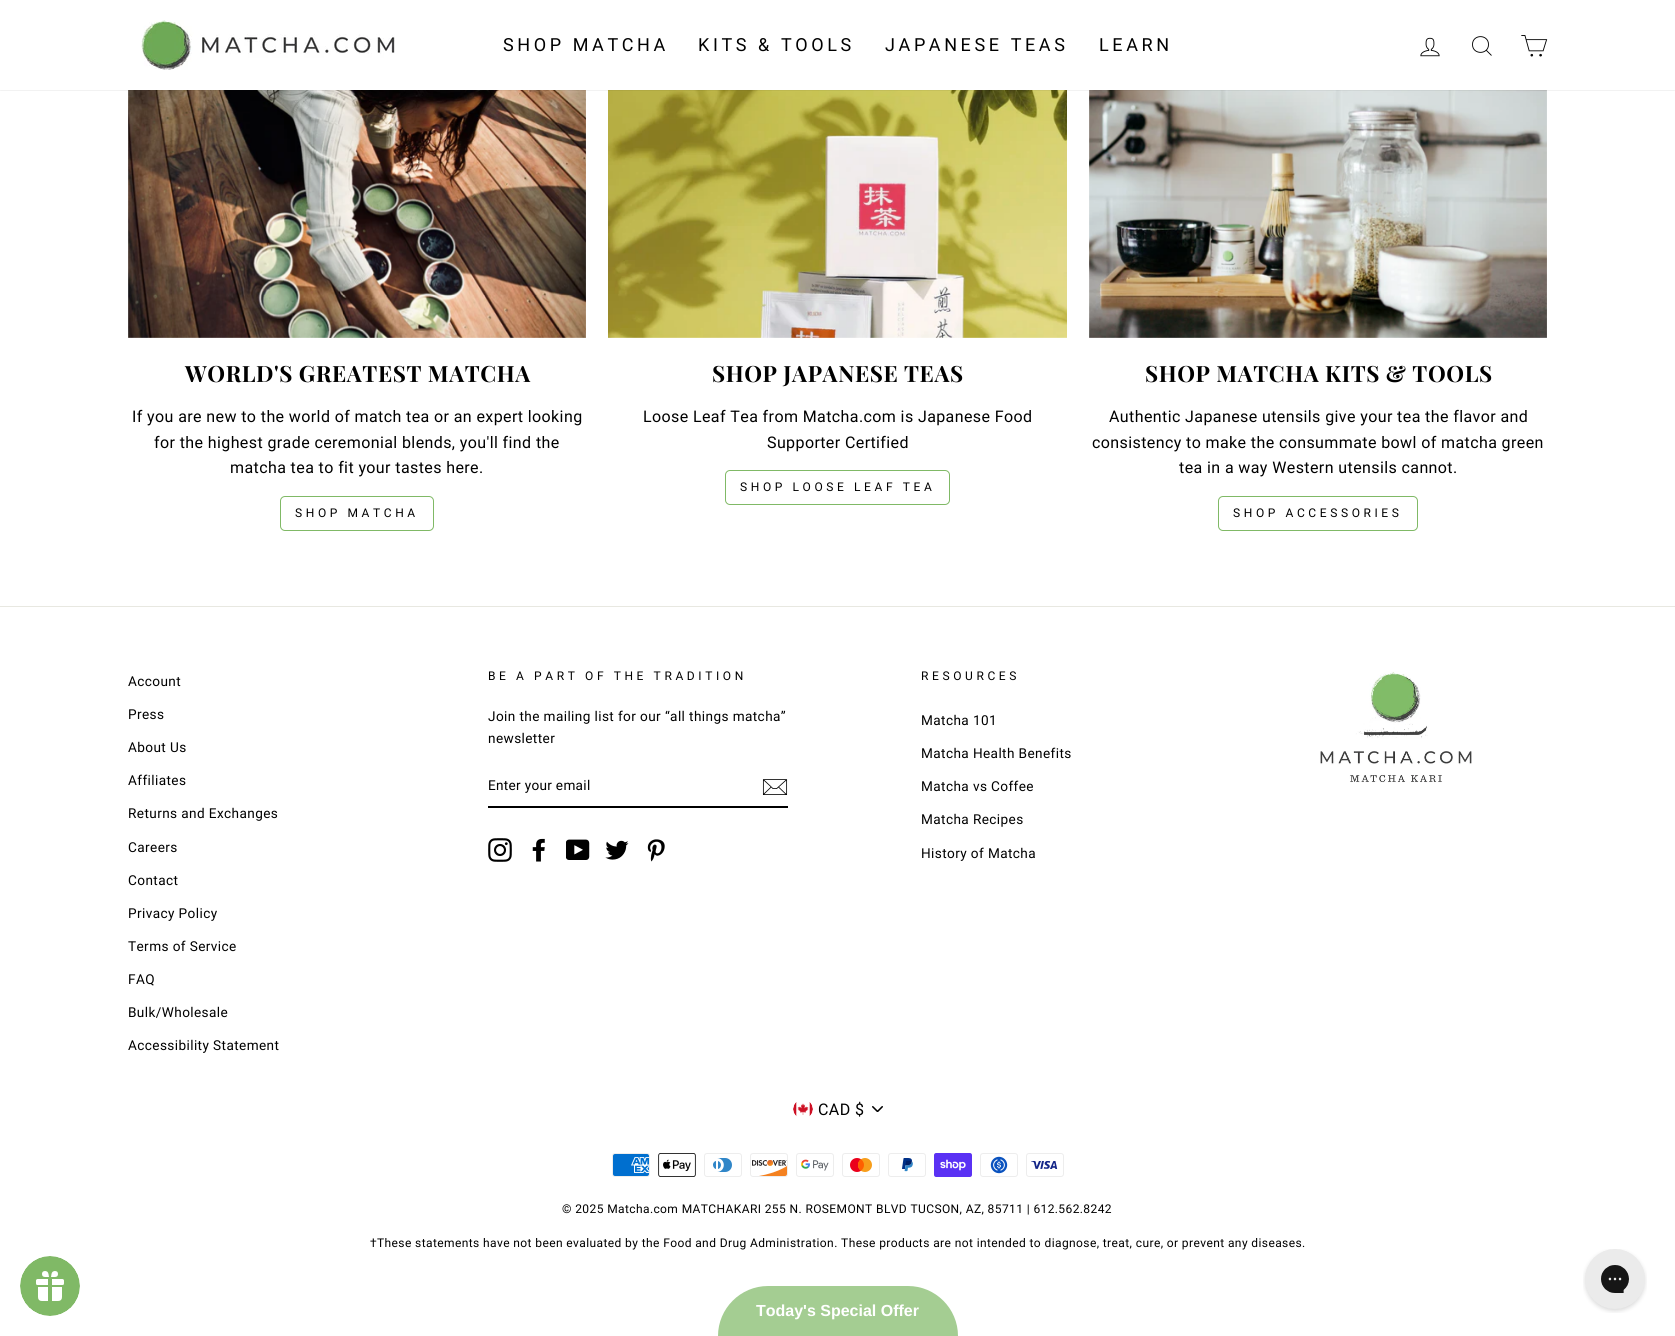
#include <cairo.h>
#include <math.h>
#include <stddef.h>


static void spaced_text(cairo_t *cr, double x, double y, const char *s, double letter, double word) {
    cairo_move_to(cr, x, y);
    while (*s) {
        char ch[5] = {0};
        int n = 0;
        do ch[n++] = *s++; while ((*s & 0xC0) == 0x80);
        cairo_show_text(cr, ch);
        cairo_rel_move_to(cr, letter + word * (*ch == ' '), 0);
    }
}

static void round_rect(cairo_t *cr, double x, double y, double w, double h, double r) {
    cairo_new_sub_path(cr);
    cairo_arc(cr, x + w - r, y + h - r, r, 0, M_PI / 2);
    cairo_arc(cr, x + r, y + h - r, r, M_PI / 2, M_PI);
    cairo_arc(cr, x + r, y + r, r, M_PI, 1.5 * M_PI);
    cairo_arc(cr, x + w - r, y + r, r, 1.5 * M_PI, 2 * M_PI);
    cairo_close_path(cr);
}

static void shadow(cairo_t *cr, double x, double y, double w, double h, double r, double blur, double alpha) {
    cairo_push_group_with_content(cr, CAIRO_CONTENT_ALPHA);
    cairo_set_operator(cr, CAIRO_OPERATOR_SOURCE);
    for (int i = 15; i >= -15 && fmin(w, h) + blur * i / 3 > 0; i -= 2) {
        double e = blur * i / 6;
        cairo_set_source_rgba(cr, 0, 0, 0, alpha * erfc((i - 1) / 8.5) / 2);
        round_rect(cr, x - e, y - e, w + 2 * e, h + 2 * e, fmax(0, fmin(r + e + blur * .6, fmin(w, h) / 2 + e)));
        cairo_fill(cr);
    }
    cairo_pattern_t *soft = cairo_pop_group(cr);
    cairo_mask(cr, soft);
    cairo_pattern_destroy(soft);
}

static void picture(cairo_t *cr, const char *path, double x, double y, double w, double h) {
    cairo_surface_t *image = cairo_image_surface_create_from_png(path);
    cairo_save(cr);
    cairo_set_source_surface(cr, image, x, y);
    cairo_rectangle(cr, x, y, w, h);
    cairo_fill(cr);
    cairo_restore(cr);
    cairo_surface_destroy(image);
}

int main(void) {
    cairo_surface_t *surface = cairo_image_surface_create(CAIRO_FORMAT_RGB24, 1675, 1336);
    cairo_t *cr = cairo_create(surface);
    cairo_font_options_t *options = cairo_font_options_create();
    cairo_font_options_set_hint_metrics(options, CAIRO_HINT_METRICS_OFF);
    cairo_font_options_set_hint_style(options, CAIRO_HINT_STYLE_NONE);
    cairo_set_font_options(cr, options);
    cairo_set_miter_limit(cr, 4);
    cairo_set_source_rgb(cr, 1, 1, 1);
    cairo_paint(cr);
    picture(cr, "img4.png", 128, 90, 458, 248);
    picture(cr, "img5.png", 608, 90, 459, 248);
    picture(cr, "img6.png", 1089, 90, 458, 248);
    cairo_set_source_rgb(cr, 0, 0, 0);
    shadow(cr, 0, 0, 1675, 90, 0, 0.5, 0.2);
    cairo_set_source_rgb(cr, 1, 1, 1);
    cairo_rectangle(cr, 0, 0, 1675, 90);
    cairo_fill(cr);
    picture(cr, "img1.png", 141, 20, 254, 50);
    cairo_select_font_face(cr, "Roboto", CAIRO_FONT_SLANT_NORMAL, CAIRO_FONT_WEIGHT_NORMAL);
    cairo_set_font_size(cr, 18);
    cairo_set_source_rgb(cr, 0, 0, 0);
    spaced_text(cr, 503, 51, "SHOP MATCHA", 3.6, 0);
    spaced_text(cr, 698, 51, "KITS & TOOLS", 3.6, 0);
    spaced_text(cr, 885, 51, "JAPANESE TEAS", 3.6, 0);
    spaced_text(cr, 1099, 51, "LEARN", 3.6, 0);
    picture(cr, "img2.png", 1420, 37, 20, 20);
    cairo_new_path(cr);
    cairo_move_to(cr, 1488.5, 44.5);
    cairo_curve_to(cr, 1488.5, 55, 1472.5, 55, 1472.5, 44.5);
    cairo_curve_to(cr, 1472.5, 34, 1488.5, 34, 1488.5, 44.5);
    cairo_close_path(cr);
    cairo_move_to(cr, 1491.5, 55.5);
    cairo_line_to(cr, 1486.5, 50.5);
    cairo_set_line_width(cr, 0.9);
    cairo_stroke(cr);
    picture(cr, "img3.png", 1521, 35, 27, 22);
    cairo_select_font_face(cr, "Playfair Display", CAIRO_FONT_SLANT_NORMAL, CAIRO_FONT_WEIGHT_BOLD);
    cairo_set_font_size(cr, 22.4);
    spaced_text(cr, 185, 382, "WORLD'S GREATEST MATCHA", 0.6, 0);
    cairo_select_font_face(cr, "Roboto", CAIRO_FONT_SLANT_NORMAL, CAIRO_FONT_WEIGHT_NORMAL);
    cairo_set_font_size(cr, 16);
    spaced_text(cr, 132, 422, "If you are new to the world of match tea or an expert looking", 0.4, 0);
    spaced_text(cr, 154, 448, "for the highest grade ceremonial blends, you'll find the", 0.4, 0);
    spaced_text(cr, 230, 473, "matcha tea to fit your tastes here.", 0.4, 0);
    round_rect(cr, 280.5, 496.5, 153, 34, 4.5);
    cairo_set_source_rgb(cr, 0.502, 0.725, 0.4);
    cairo_set_line_width(cr, 1);
    cairo_stroke(cr);
    cairo_set_font_size(cr, 12);
    cairo_set_source_rgb(cr, 0, 0, 0);
    spaced_text(cr, 295, 517, "SHOP MATCHA", 3.6, 0);
    cairo_select_font_face(cr, "Playfair Display", CAIRO_FONT_SLANT_NORMAL, CAIRO_FONT_WEIGHT_BOLD);
    cairo_set_font_size(cr, 22.4);
    spaced_text(cr, 712, 382, "SHOP JAPANESE TEAS", 0.6, 0);
    cairo_select_font_face(cr, "Roboto", CAIRO_FONT_SLANT_NORMAL, CAIRO_FONT_WEIGHT_NORMAL);
    cairo_set_font_size(cr, 16);
    spaced_text(cr, 643, 422, "Loose Leaf Tea from Matcha.com is Japanese Food", 0.4, 0);
    spaced_text(cr, 767, 448, "Supporter Certified", 0.4, 0);
    round_rect(cr, 725.5, 470.5, 224, 34, 4.5);
    cairo_set_source_rgb(cr, 0.502, 0.725, 0.4);
    cairo_stroke(cr);
    cairo_set_font_size(cr, 12);
    cairo_set_source_rgb(cr, 0, 0, 0);
    spaced_text(cr, 740, 491, "SHOP LOOSE LEAF TEA", 3.6, 0);
    cairo_select_font_face(cr, "Playfair Display", CAIRO_FONT_SLANT_NORMAL, CAIRO_FONT_WEIGHT_BOLD);
    cairo_set_font_size(cr, 22.4);
    spaced_text(cr, 1145, 382, "SHOP MATCHA KITS & TOOLS", 0.6, 0);
    cairo_select_font_face(cr, "Roboto", CAIRO_FONT_SLANT_NORMAL, CAIRO_FONT_WEIGHT_NORMAL);
    cairo_set_font_size(cr, 16);
    spaced_text(cr, 1109, 422, "Authentic Japanese utensils give your tea the flavor and", 0.4, 0);
    spaced_text(cr, 1092, 448, "consistency to make the consummate bowl of matcha green", 0.4, 0);
    spaced_text(cr, 1179, 473, "tea in a way Western utensils cannot.", 0.4, 0);
    round_rect(cr, 1218.5, 496.5, 199, 34, 4.5);
    cairo_set_source_rgb(cr, 0.502, 0.725, 0.4);
    cairo_stroke(cr);
    cairo_set_font_size(cr, 12);
    cairo_set_source_rgb(cr, 0, 0, 0);
    spaced_text(cr, 1233, 517, "SHOP ACCESSORIES", 3.6, 0);
    cairo_set_source_rgb(cr, 0.91, 0.91, 0.882);
    cairo_rectangle(cr, 0, 606, 1675, 1);
    cairo_fill(cr);
    cairo_set_font_size(cr, 13.6);
    cairo_set_source_rgb(cr, 0, 0, 0);
    spaced_text(cr, 128, 686, "Account", 0.4, 0);
    spaced_text(cr, 128, 719, "Press", 0.4, 0);
    spaced_text(cr, 128, 752, "About Us", 0.4, 0);
    spaced_text(cr, 128, 785, "Affiliates", 0.4, 0);
    spaced_text(cr, 128, 818, "Returns and Exchanges", 0.4, 0);
    spaced_text(cr, 128, 852, "Careers", 0.4, 0);
    spaced_text(cr, 128, 885, "Contact", 0.4, 0);
    spaced_text(cr, 128, 918, "Privacy Policy", 0.4, 0);
    spaced_text(cr, 128, 951, "Terms of Service", 0.4, 0);
    spaced_text(cr, 128, 984, "FAQ", 0.4, 0);
    spaced_text(cr, 128, 1017, "Bulk/Wholesale", 0.4, 0);
    spaced_text(cr, 128, 1050, "Accessibility Statement", 0.4, 0);
    cairo_set_font_size(cr, 12);
    spaced_text(cr, 488, 680, "BE A PART OF THE TRADITION", 3.6, 0);
    cairo_set_font_size(cr, 13.6);
    spaced_text(cr, 488, 721, "Join the mailing list for our “all things matcha”", 0.4, 0);
    spaced_text(cr, 488, 743, "newsletter", 0.4, 0);
    cairo_rectangle(cr, 488, 806, 300, 2);
    cairo_fill(cr);
    spaced_text(cr, 488, 790, "Enter your email", 0.3, 0);
    picture(cr, "img7.png", 762, 779, 26, 16);
    picture(cr, "img8.png", 488, 838, 24, 24);
    picture(cr, "img9.png", 532, 838, 13, 24);
    picture(cr, "img10.png", 566, 839, 24, 21);
    picture(cr, "img11.png", 605, 840, 24, 20);
    picture(cr, "img12.png", 647, 839, 18, 23);
    cairo_set_font_size(cr, 12);
    spaced_text(cr, 921, 680, "RESOURCES", 3.6, 0);
    cairo_set_font_size(cr, 13.6);
    spaced_text(cr, 921, 725, "Matcha 101", 0.4, 0);
    spaced_text(cr, 921, 758, "Matcha Health Benefits", 0.4, 0);
    spaced_text(cr, 921, 791, "Matcha vs Coffee", 0.4, 0);
    spaced_text(cr, 921, 824, "Matcha Recipes", 0.4, 0);
    spaced_text(cr, 921, 858, "History of Matcha", 0.4, 0);
    picture(cr, "img13.png", 1320, 671, 152, 112);
    picture(cr, "img14.png", 872, 1106, 11, 6);
    picture(cr, "img15.png", 793, 1102, 20, 15);
    cairo_set_font_size(cr, 16);
    spaced_text(cr, 818, 1115, "CAD $", 0.4, 0);
    picture(cr, "img16.png", 612, 1153, 38, 24);
    picture(cr, "img17.png", 658, 1153, 38, 24);
    picture(cr, "img18.png", 704, 1153, 38, 24);
    picture(cr, "img19.png", 750, 1153, 38, 24);
    picture(cr, "img20.png", 796, 1153, 38, 24);
    picture(cr, "img21.png", 842, 1153, 38, 24);
    picture(cr, "img22.png", 888, 1153, 38, 24);
    picture(cr, "img23.png", 934, 1153, 38, 24);
    picture(cr, "img24.png", 980, 1153, 38, 24);
    picture(cr, "img25.png", 1026, 1153, 38, 24);
    cairo_set_font_size(cr, 12);
    spaced_text(cr, 562, 1213, "© 2025 Matcha.com MATCHAKARI 255 N. ROSEMONT BLVD TUCSON, AZ, 85711 | 612.562.8242", 0.4, 0);
    spaced_text(cr, 370, 1247, "†These statements have not been evaluated by the Food and Drug Administration. These products are not intended to diagnose, treat, cure, or prevent any diseases.", 0.4, 0);
    picture(cr, "img26.png", 20, 1256, 60, 60);
    cairo_set_source_rgb(cr, 0.643, 0.804, 0.573);
    cairo_new_path(cr);
    cairo_move_to(cr, 768, 1286);
    cairo_line_to(cr, 908, 1286);
    cairo_curve_to(cr, 935.5, 1286, 958, 1308.5, 958, 1336);
    cairo_line_to(cr, 718, 1336);
    cairo_curve_to(cr, 718, 1308.5, 740.5, 1286, 768, 1286);
    cairo_close_path(cr);
    cairo_fill(cr);
    cairo_select_font_face(cr, "Liberation Sans", CAIRO_FONT_SLANT_NORMAL, CAIRO_FONT_WEIGHT_BOLD);
    cairo_set_font_size(cr, 16);
    cairo_set_source_rgb(cr, 1, 1, 1);
    cairo_move_to(cr, 756, 1316);
    cairo_show_text(cr, "Today's Special Offer");
    picture(cr, "img27.png", 1583, 1249, 64, 64);
    cairo_surface_write_to_png(surface, "page.png");
    cairo_font_options_destroy(options);
    cairo_destroy(cr);
    cairo_surface_destroy(surface);
    return 0;
}
